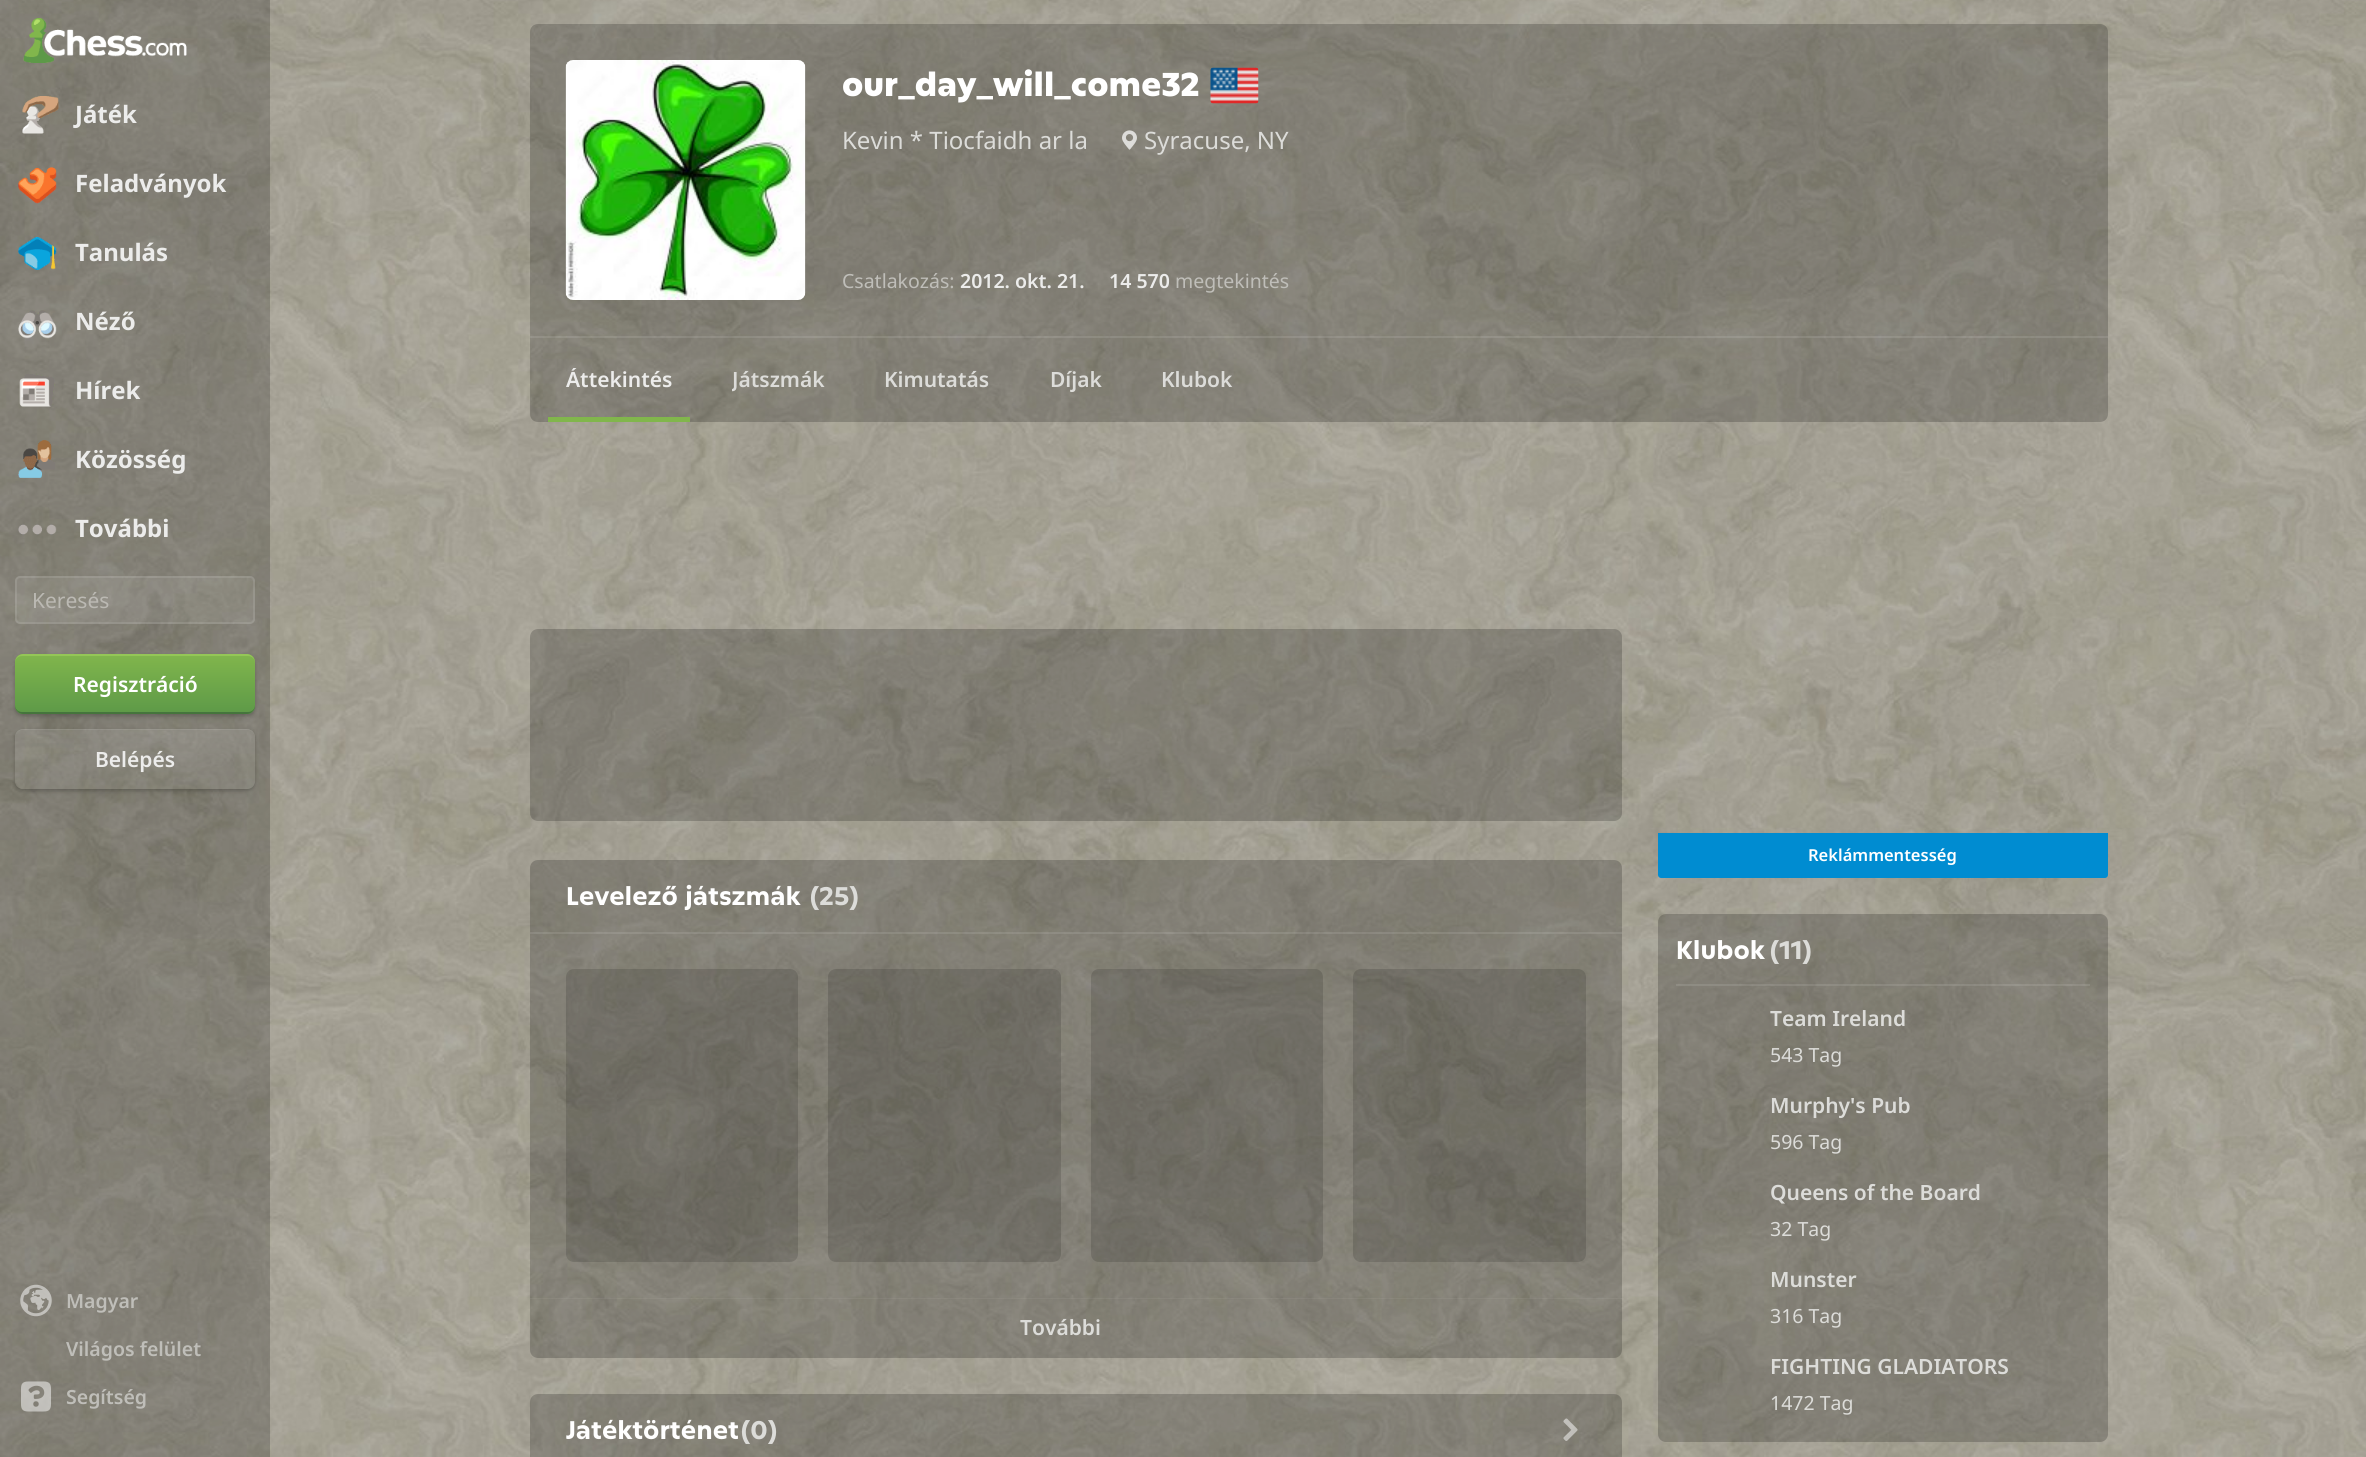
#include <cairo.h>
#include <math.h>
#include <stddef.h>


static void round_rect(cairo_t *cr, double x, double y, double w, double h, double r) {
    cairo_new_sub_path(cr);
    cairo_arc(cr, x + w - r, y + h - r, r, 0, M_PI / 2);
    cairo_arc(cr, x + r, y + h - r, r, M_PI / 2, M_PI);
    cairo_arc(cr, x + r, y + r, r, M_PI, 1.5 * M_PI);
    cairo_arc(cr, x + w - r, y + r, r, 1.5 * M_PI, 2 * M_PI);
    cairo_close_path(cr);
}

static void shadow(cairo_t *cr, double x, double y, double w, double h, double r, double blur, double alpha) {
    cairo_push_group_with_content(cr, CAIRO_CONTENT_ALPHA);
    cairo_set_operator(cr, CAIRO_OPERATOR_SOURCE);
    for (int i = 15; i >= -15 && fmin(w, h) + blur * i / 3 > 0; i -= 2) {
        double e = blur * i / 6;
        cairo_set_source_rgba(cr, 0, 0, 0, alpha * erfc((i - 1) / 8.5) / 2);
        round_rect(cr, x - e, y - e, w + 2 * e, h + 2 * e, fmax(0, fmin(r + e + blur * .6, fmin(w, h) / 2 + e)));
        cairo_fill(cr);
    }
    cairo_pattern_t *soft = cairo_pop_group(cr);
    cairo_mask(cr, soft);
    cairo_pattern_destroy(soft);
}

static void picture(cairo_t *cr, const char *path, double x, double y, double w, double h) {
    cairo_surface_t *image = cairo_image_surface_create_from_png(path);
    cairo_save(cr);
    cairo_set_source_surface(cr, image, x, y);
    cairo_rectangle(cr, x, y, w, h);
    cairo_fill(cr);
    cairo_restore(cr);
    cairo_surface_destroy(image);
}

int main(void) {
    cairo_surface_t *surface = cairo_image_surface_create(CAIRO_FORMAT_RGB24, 2366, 1457);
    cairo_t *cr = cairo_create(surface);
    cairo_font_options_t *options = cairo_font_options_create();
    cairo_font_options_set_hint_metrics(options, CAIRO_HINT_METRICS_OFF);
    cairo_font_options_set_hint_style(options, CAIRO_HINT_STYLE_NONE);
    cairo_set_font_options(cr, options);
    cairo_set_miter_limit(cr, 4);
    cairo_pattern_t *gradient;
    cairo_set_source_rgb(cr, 1, 1, 1);
    cairo_paint(cr);
    picture(cr, "img1.png", 0, 0, 2366, 1457);
    cairo_set_source_rgba(cr, 0, 0, 0, 0.2);
    cairo_rectangle(cr, 0, 0, 270, 1457);
    cairo_fill(cr);
    picture(cr, "img2.png", 23, 18, 164, 45);
    picture(cr, "img3.png", 22, 96, 37, 38);
    cairo_select_font_face(cr, "Noto Sans", CAIRO_FONT_SLANT_NORMAL, CAIRO_FONT_WEIGHT_BOLD);
    cairo_set_font_size(cr, 24);
    cairo_set_source_rgb(cr, 0.925, 0.925, 0.918);
    cairo_move_to(cr, 75, 123);
    cairo_show_text(cr, "Játék");
    picture(cr, "img4.png", 18, 167, 39, 37);
    cairo_move_to(cr, 75, 192);
    cairo_show_text(cr, "Feladványok");
    picture(cr, "img5.png", 18, 237, 39, 33);
    cairo_move_to(cr, 75, 261);
    cairo_show_text(cr, "Tanulás");
    picture(cr, "img6.png", 18, 310, 39, 29);
    cairo_move_to(cr, 75, 330);
    cairo_show_text(cr, "Néző");
    picture(cr, "img7.png", 19, 374, 36, 33);
    cairo_move_to(cr, 75, 399);
    cairo_show_text(cr, "Hírek");
    picture(cr, "img8.png", 18, 440, 37, 38);
    cairo_move_to(cr, 75, 468);
    cairo_show_text(cr, "Közösség");
    picture(cr, "img9.png", 18, 524, 39, 11);
    cairo_move_to(cr, 75, 537);
    cairo_show_text(cr, "További");
    cairo_set_source_rgba(cr, 1, 1, 1, 0.08);
    round_rect(cr, 15, 576, 240, 48, 5);
    cairo_fill(cr);
    round_rect(cr, 16, 577, 238, 46, 4);
    cairo_set_source_rgba(cr, 1, 1, 1, 0.1);
    cairo_stroke(cr);
    cairo_select_font_face(cr, "Noto Sans", CAIRO_FONT_SLANT_NORMAL, CAIRO_FONT_WEIGHT_NORMAL);
    cairo_set_font_size(cr, 21);
    cairo_set_source_rgb(cr, 0.733, 0.725, 0.702);
    cairo_move_to(cr, 32, 608);
    cairo_show_text(cr, "Keresés");
    cairo_set_source_rgb(cr, 0, 0, 0);
    shadow(cr, 15, 657, 240, 60, 8, 3, 0.1);
    shadow(cr, 15, 656, 240, 60, 8, 1.5, 0.14);
    gradient = cairo_pattern_create_linear(135, 654, 135, 714);
    cairo_pattern_add_color_stop_rgba(gradient, 0, 0.506, 0.714, 0.298, 1);
    cairo_pattern_add_color_stop_rgba(gradient, 1, 0.365, 0.6, 0.282, 1);
    cairo_set_source(cr, gradient);
    cairo_pattern_destroy(gradient);
    round_rect(cr, 15, 654, 240, 60, 8);
    cairo_fill(cr);
    cairo_set_source_rgb(cr, 0.271, 0.459, 0.235);
    cairo_new_path(cr);
    cairo_move_to(cr, 15, 705);
    cairo_line_to(cr, 15, 706);
    cairo_curve_to(cr, 15, 710, 19, 714, 23, 714);
    cairo_line_to(cr, 247, 714);
    cairo_curve_to(cr, 251, 714, 255, 710, 255, 706);
    cairo_line_to(cr, 255, 705);
    cairo_curve_to(cr, 255, 709, 252, 712, 248, 712);
    cairo_line_to(cr, 22, 712);
    cairo_curve_to(cr, 18, 712, 15, 709, 15, 705);
    cairo_close_path(cr);
    cairo_fill(cr);
    cairo_set_source_rgba(cr, 0.698, 0.878, 0.408, 0.4);
    cairo_new_path(cr);
    cairo_move_to(cr, 22, 656);
    cairo_line_to(cr, 248, 656);
    cairo_curve_to(cr, 252, 656, 255, 659, 255, 663);
    cairo_line_to(cr, 255, 662);
    cairo_curve_to(cr, 255, 658, 251, 654, 247, 654);
    cairo_line_to(cr, 23, 654);
    cairo_curve_to(cr, 19, 654, 15, 658, 15, 662);
    cairo_line_to(cr, 15, 663);
    cairo_curve_to(cr, 15, 659, 18, 656, 22, 656);
    cairo_close_path(cr);
    cairo_fill(cr);
    cairo_select_font_face(cr, "Noto Sans SemiBold", CAIRO_FONT_SLANT_NORMAL, CAIRO_FONT_WEIGHT_NORMAL);
    cairo_set_source_rgb(cr, 1, 1, 1);
    cairo_move_to(cr, 73, 692);
    cairo_show_text(cr, "Regisztráció");
    cairo_save(cr);
    cairo_set_fill_rule(cr, CAIRO_FILL_RULE_EVEN_ODD);
    cairo_new_path(cr);
    cairo_move_to(cr, 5, 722);
    cairo_line_to(cr, 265, 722);
    cairo_line_to(cr, 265, 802);
    cairo_line_to(cr, 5, 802);
    cairo_close_path(cr);
    cairo_move_to(cr, 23, 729);
    cairo_line_to(cr, 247, 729);
    cairo_curve_to(cr, 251.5, 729, 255, 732.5, 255, 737);
    cairo_line_to(cr, 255, 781);
    cairo_curve_to(cr, 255, 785.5, 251.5, 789, 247, 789);
    cairo_line_to(cr, 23, 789);
    cairo_curve_to(cr, 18.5, 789, 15, 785.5, 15, 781);
    cairo_line_to(cr, 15, 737);
    cairo_curve_to(cr, 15, 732.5, 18.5, 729, 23, 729);
    cairo_close_path(cr);
    cairo_clip(cr);
    cairo_set_source_rgb(cr, 0, 0, 0);
    shadow(cr, 15, 732, 240, 60, 8, 3, 0.1);
    cairo_restore(cr);
    cairo_save(cr);
    cairo_set_fill_rule(cr, CAIRO_FILL_RULE_EVEN_ODD);
    cairo_new_path(cr);
    cairo_move_to(cr, 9, 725);
    cairo_line_to(cr, 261, 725);
    cairo_line_to(cr, 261, 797);
    cairo_line_to(cr, 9, 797);
    cairo_close_path(cr);
    cairo_move_to(cr, 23, 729);
    cairo_line_to(cr, 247, 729);
    cairo_curve_to(cr, 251.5, 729, 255, 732.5, 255, 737);
    cairo_line_to(cr, 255, 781);
    cairo_curve_to(cr, 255, 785.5, 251.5, 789, 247, 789);
    cairo_line_to(cr, 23, 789);
    cairo_curve_to(cr, 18.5, 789, 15, 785.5, 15, 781);
    cairo_line_to(cr, 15, 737);
    cairo_curve_to(cr, 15, 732.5, 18.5, 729, 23, 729);
    cairo_close_path(cr);
    cairo_clip(cr);
    cairo_set_source_rgb(cr, 0, 0, 0);
    shadow(cr, 15, 731, 240, 60, 8, 1.5, 0.14);
    cairo_restore(cr);
    gradient = cairo_pattern_create_linear(135, 729, 135, 789);
    cairo_pattern_add_color_stop_rgba(gradient, 0, 1, 1, 1, 0.1);
    cairo_pattern_add_color_stop_rgba(gradient, 1, 1, 1, 1, 0.05);
    cairo_set_source(cr, gradient);
    cairo_pattern_destroy(gradient);
    round_rect(cr, 15, 729, 240, 60, 8);
    cairo_fill(cr);
    cairo_set_source_rgba(cr, 1, 1, 1, 0.08);
    cairo_new_path(cr);
    cairo_move_to(cr, 22, 730);
    cairo_line_to(cr, 248, 730);
    cairo_curve_to(cr, 252, 730, 255, 734, 255, 738);
    cairo_line_to(cr, 255, 737);
    cairo_curve_to(cr, 255, 733, 251, 729, 247, 729);
    cairo_line_to(cr, 23, 729);
    cairo_curve_to(cr, 19, 729, 15, 733, 15, 737);
    cairo_line_to(cr, 15, 738);
    cairo_curve_to(cr, 15, 734, 18, 730, 22, 730);
    cairo_close_path(cr);
    cairo_fill(cr);
    cairo_set_source_rgb(cr, 0.925, 0.925, 0.918);
    cairo_move_to(cr, 95, 767);
    cairo_show_text(cr, "Belépés");
    picture(cr, "img10.png", 20, 1284, 32, 33);
    cairo_set_font_size(cr, 19.5);
    cairo_set_source_rgb(cr, 0.749, 0.745, 0.725);
    cairo_move_to(cr, 66, 1308);
    cairo_show_text(cr, "Magyar");
    cairo_move_to(cr, 66, 1356);
    cairo_show_text(cr, "Világos felület");
    picture(cr, "img11.png", 21, 1381, 30, 31);
    cairo_move_to(cr, 66, 1404);
    cairo_show_text(cr, "Segítség");
    cairo_set_source_rgba(cr, 0, 0, 0, 0.2);
    cairo_new_path(cr);
    cairo_move_to(cr, 538, 24);
    cairo_line_to(cr, 2100, 24);
    cairo_curve_to(cr, 2104.5, 24, 2108, 27.5, 2108, 32);
    cairo_line_to(cr, 2108, 336);
    cairo_line_to(cr, 530, 336);
    cairo_line_to(cr, 530, 32);
    cairo_curve_to(cr, 530, 27.5, 533.5, 24, 538, 24);
    cairo_close_path(cr);
    cairo_fill(cr);
    picture(cr, "img12.png", 565, 60, 241, 240);
    cairo_select_font_face(cr, "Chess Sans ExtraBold", CAIRO_FONT_SLANT_NORMAL, CAIRO_FONT_WEIGHT_NORMAL);
    cairo_set_font_size(cr, 33);
    cairo_set_source_rgb(cr, 1, 1, 1);
    cairo_move_to(cr, 842, 96);
    cairo_show_text(cr, "our_day_will_come32");
    picture(cr, "img13.png", 1210, 67, 49, 37);
    cairo_select_font_face(cr, "Noto Sans", CAIRO_FONT_SLANT_NORMAL, CAIRO_FONT_WEIGHT_NORMAL);
    cairo_set_font_size(cr, 24);
    cairo_set_source_rgb(cr, 0.863, 0.863, 0.851);
    cairo_move_to(cr, 842, 149);
    cairo_show_text(cr, "Kevin * Tiocfaidh ar la");
    picture(cr, "img14.png", 1122, 130, 15, 20);
    cairo_move_to(cr, 1144, 149);
    cairo_show_text(cr, "Syracuse, NY");
    cairo_set_font_size(cr, 19.5);
    cairo_set_source_rgb(cr, 0.749, 0.745, 0.725);
    cairo_move_to(cr, 842, 288);
    cairo_show_text(cr, "Csatlakozás:");
    cairo_select_font_face(cr, "Noto Sans SemiBold", CAIRO_FONT_SLANT_NORMAL, CAIRO_FONT_WEIGHT_NORMAL);
    cairo_set_source_rgb(cr, 0.925, 0.925, 0.918);
    cairo_move_to(cr, 960, 288);
    cairo_show_text(cr, "2012. okt. 21.");
    cairo_move_to(cr, 1109, 288);
    cairo_show_text(cr, "14 570");
    cairo_select_font_face(cr, "Noto Sans", CAIRO_FONT_SLANT_NORMAL, CAIRO_FONT_WEIGHT_NORMAL);
    cairo_set_source_rgb(cr, 0.749, 0.745, 0.725);
    cairo_move_to(cr, 1175, 288);
    cairo_show_text(cr, "megtekintés");
    cairo_set_source_rgba(cr, 0, 0, 0, 0.2);
    cairo_new_path(cr);
    cairo_move_to(cr, 530, 336);
    cairo_line_to(cr, 2108, 336);
    cairo_line_to(cr, 2108, 414);
    cairo_curve_to(cr, 2108, 418.5, 2104.5, 422, 2100, 422);
    cairo_line_to(cr, 538, 422);
    cairo_curve_to(cr, 533.5, 422, 530, 418.5, 530, 414);
    cairo_close_path(cr);
    cairo_fill(cr);
    cairo_set_source_rgba(cr, 1, 1, 1, 0.1);
    cairo_rectangle(cr, 530, 336, 1578, 2);
    cairo_fill(cr);
    cairo_set_source_rgb(cr, 0.506, 0.714, 0.298);
    cairo_rectangle(cr, 548, 417, 142, 5);
    cairo_fill(cr);
    cairo_save(cr);
    cairo_rectangle(cr, 566, 368, 106, 24);
    cairo_clip(cr);
    cairo_select_font_face(cr, "Noto Sans SemiBold", CAIRO_FONT_SLANT_NORMAL, CAIRO_FONT_WEIGHT_NORMAL);
    cairo_set_font_size(cr, 21);
    cairo_set_source_rgb(cr, 0.925, 0.925, 0.918);
    cairo_move_to(cr, 566, 387);
    cairo_show_text(cr, "Áttekintés");
    cairo_restore(cr);
    cairo_save(cr);
    cairo_rectangle(cr, 732, 368, 93, 24);
    cairo_clip(cr);
    cairo_select_font_face(cr, "Noto Sans SemiBold", CAIRO_FONT_SLANT_NORMAL, CAIRO_FONT_WEIGHT_NORMAL);
    cairo_set_font_size(cr, 21);
    cairo_set_source_rgb(cr, 0.863, 0.863, 0.851);
    cairo_move_to(cr, 732, 387);
    cairo_show_text(cr, "Játszmák");
    cairo_restore(cr);
    cairo_select_font_face(cr, "Noto Sans SemiBold", CAIRO_FONT_SLANT_NORMAL, CAIRO_FONT_WEIGHT_NORMAL);
    cairo_set_font_size(cr, 21);
    cairo_set_source_rgb(cr, 0.863, 0.863, 0.851);
    cairo_move_to(cr, 884, 387);
    cairo_show_text(cr, "Kimutatás");
    cairo_move_to(cr, 1050, 387);
    cairo_show_text(cr, "Díjak");
    cairo_move_to(cr, 1161, 387);
    cairo_show_text(cr, "Klubok");
    cairo_set_source_rgba(cr, 0, 0, 0, 0.2);
    round_rect(cr, 530, 629, 1092, 192, 8);
    cairo_fill(cr);
    round_rect(cr, 530, 860, 1092, 498, 8);
    cairo_fill(cr);
    cairo_select_font_face(cr, "Chess Sans", CAIRO_FONT_SLANT_NORMAL, CAIRO_FONT_WEIGHT_BOLD);
    cairo_set_font_size(cr, 25.5);
    cairo_set_source_rgb(cr, 1, 1, 1);
    cairo_move_to(cr, 566, 905);
    cairo_show_text(cr, "Levelező játszmák");
    cairo_set_source_rgb(cr, 0.863, 0.863, 0.851);
    cairo_move_to(cr, 810, 905);
    cairo_show_text(cr, "(25)");
    cairo_set_source_rgba(cr, 1, 1, 1, 0.1);
    cairo_rectangle(cr, 530, 932, 1092, 2);
    cairo_fill(cr);
    cairo_set_source_rgba(cr, 0, 0, 0, 0.14);
    round_rect(cr, 566, 969, 232, 293, 8);
    cairo_fill(cr);
    round_rect(cr, 828, 969, 233, 293, 8);
    cairo_fill(cr);
    round_rect(cr, 1091, 969, 232, 293, 8);
    cairo_fill(cr);
    round_rect(cr, 1353, 969, 233, 293, 8);
    cairo_fill(cr);
    cairo_set_source_rgba(cr, 1, 1, 1, 0.05);
    cairo_rectangle(cr, 530, 1298, 1092, 1);
    cairo_fill(cr);
    cairo_select_font_face(cr, "Noto Sans SemiBold", CAIRO_FONT_SLANT_NORMAL, CAIRO_FONT_WEIGHT_NORMAL);
    cairo_set_font_size(cr, 21);
    cairo_set_source_rgb(cr, 0.863, 0.863, 0.851);
    cairo_move_to(cr, 1020, 1335);
    cairo_show_text(cr, "További");
    cairo_set_source_rgba(cr, 0, 0, 0, 0.2);
    round_rect(cr, 530, 1394, 1092, 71, 8);
    cairo_fill(cr);
    cairo_save(cr);
    cairo_rectangle(cr, 566, 1410, 172, 39);
    cairo_clip(cr);
    cairo_select_font_face(cr, "Chess Sans", CAIRO_FONT_SLANT_NORMAL, CAIRO_FONT_WEIGHT_BOLD);
    cairo_set_font_size(cr, 25.5);
    cairo_set_source_rgb(cr, 1, 1, 1);
    cairo_move_to(cr, 566, 1439);
    cairo_show_text(cr, "Játéktörténet");
    cairo_restore(cr);
    cairo_select_font_face(cr, "Chess Sans", CAIRO_FONT_SLANT_NORMAL, CAIRO_FONT_WEIGHT_BOLD);
    cairo_set_font_size(cr, 25.5);
    cairo_set_source_rgb(cr, 0.863, 0.863, 0.851);
    cairo_move_to(cr, 741, 1439);
    cairo_show_text(cr, "(0)");
    picture(cr, "img15.png", 1563, 1418, 15, 23);
    cairo_set_source_rgb(cr, 0, 0.549, 0.82);
    cairo_new_path(cr);
    cairo_move_to(cr, 1658, 833);
    cairo_line_to(cr, 2108, 833);
    cairo_line_to(cr, 2108, 875);
    cairo_curve_to(cr, 2108, 876.5, 2106.5, 878, 2105, 878);
    cairo_line_to(cr, 1661, 878);
    cairo_curve_to(cr, 1659.5, 878, 1658, 876.5, 1658, 875);
    cairo_close_path(cr);
    cairo_fill(cr);
    cairo_select_font_face(cr, "Noto Sans SemiBold", CAIRO_FONT_SLANT_NORMAL, CAIRO_FONT_WEIGHT_NORMAL);
    cairo_set_font_size(cr, 16.5);
    cairo_set_source_rgb(cr, 1, 1, 1);
    cairo_move_to(cr, 1808, 861);
    cairo_show_text(cr, "Reklámmentesség");
    cairo_set_source_rgba(cr, 0, 0, 0, 0.2);
    round_rect(cr, 1658, 914, 450, 528, 8);
    cairo_fill(cr);
    cairo_select_font_face(cr, "Chess Sans", CAIRO_FONT_SLANT_NORMAL, CAIRO_FONT_WEIGHT_BOLD);
    cairo_set_font_size(cr, 25.5);
    cairo_set_source_rgb(cr, 1, 1, 1);
    cairo_move_to(cr, 1676, 959);
    cairo_show_text(cr, "Klubok");
    cairo_set_source_rgb(cr, 0.863, 0.863, 0.851);
    cairo_move_to(cr, 1770, 959);
    cairo_show_text(cr, "(11)");
    cairo_set_source_rgba(cr, 1, 1, 1, 0.1);
    cairo_rectangle(cr, 1676, 984, 414, 2);
    cairo_fill(cr);
    cairo_select_font_face(cr, "Noto Sans SemiBold", CAIRO_FONT_SLANT_NORMAL, CAIRO_FONT_WEIGHT_NORMAL);
    cairo_set_font_size(cr, 21);
    cairo_set_source_rgb(cr, 0.863, 0.863, 0.851);
    cairo_move_to(cr, 1770, 1026);
    cairo_show_text(cr, "Team Ireland");
    cairo_select_font_face(cr, "Noto Sans", CAIRO_FONT_SLANT_NORMAL, CAIRO_FONT_WEIGHT_NORMAL);
    cairo_set_font_size(cr, 19.5);
    cairo_move_to(cr, 1770, 1062);
    cairo_show_text(cr, "543 Tag");
    cairo_select_font_face(cr, "Noto Sans SemiBold", CAIRO_FONT_SLANT_NORMAL, CAIRO_FONT_WEIGHT_NORMAL);
    cairo_set_font_size(cr, 21);
    cairo_move_to(cr, 1770, 1113);
    cairo_show_text(cr, "Murphy's Pub");
    cairo_select_font_face(cr, "Noto Sans", CAIRO_FONT_SLANT_NORMAL, CAIRO_FONT_WEIGHT_NORMAL);
    cairo_set_font_size(cr, 19.5);
    cairo_move_to(cr, 1770, 1149);
    cairo_show_text(cr, "596 Tag");
    cairo_select_font_face(cr, "Noto Sans SemiBold", CAIRO_FONT_SLANT_NORMAL, CAIRO_FONT_WEIGHT_NORMAL);
    cairo_set_font_size(cr, 21);
    cairo_move_to(cr, 1770, 1200);
    cairo_show_text(cr, "Queens of the Board");
    cairo_select_font_face(cr, "Noto Sans", CAIRO_FONT_SLANT_NORMAL, CAIRO_FONT_WEIGHT_NORMAL);
    cairo_set_font_size(cr, 19.5);
    cairo_move_to(cr, 1770, 1236);
    cairo_show_text(cr, "32 Tag");
    cairo_select_font_face(cr, "Noto Sans SemiBold", CAIRO_FONT_SLANT_NORMAL, CAIRO_FONT_WEIGHT_NORMAL);
    cairo_set_font_size(cr, 21);
    cairo_move_to(cr, 1770, 1287);
    cairo_show_text(cr, "Munster");
    cairo_select_font_face(cr, "Noto Sans", CAIRO_FONT_SLANT_NORMAL, CAIRO_FONT_WEIGHT_NORMAL);
    cairo_set_font_size(cr, 19.5);
    cairo_move_to(cr, 1770, 1323);
    cairo_show_text(cr, "316 Tag");
    cairo_select_font_face(cr, "Noto Sans SemiBold", CAIRO_FONT_SLANT_NORMAL, CAIRO_FONT_WEIGHT_NORMAL);
    cairo_set_font_size(cr, 21);
    cairo_move_to(cr, 1770, 1374);
    cairo_show_text(cr, "FIGHTING GLADIATORS");
    cairo_select_font_face(cr, "Noto Sans", CAIRO_FONT_SLANT_NORMAL, CAIRO_FONT_WEIGHT_NORMAL);
    cairo_set_font_size(cr, 19.5);
    cairo_move_to(cr, 1770, 1410);
    cairo_show_text(cr, "1472 Tag");
    cairo_surface_write_to_png(surface, "page.png");
    cairo_font_options_destroy(options);
    cairo_destroy(cr);
    cairo_surface_destroy(surface);
    return 0;
}
